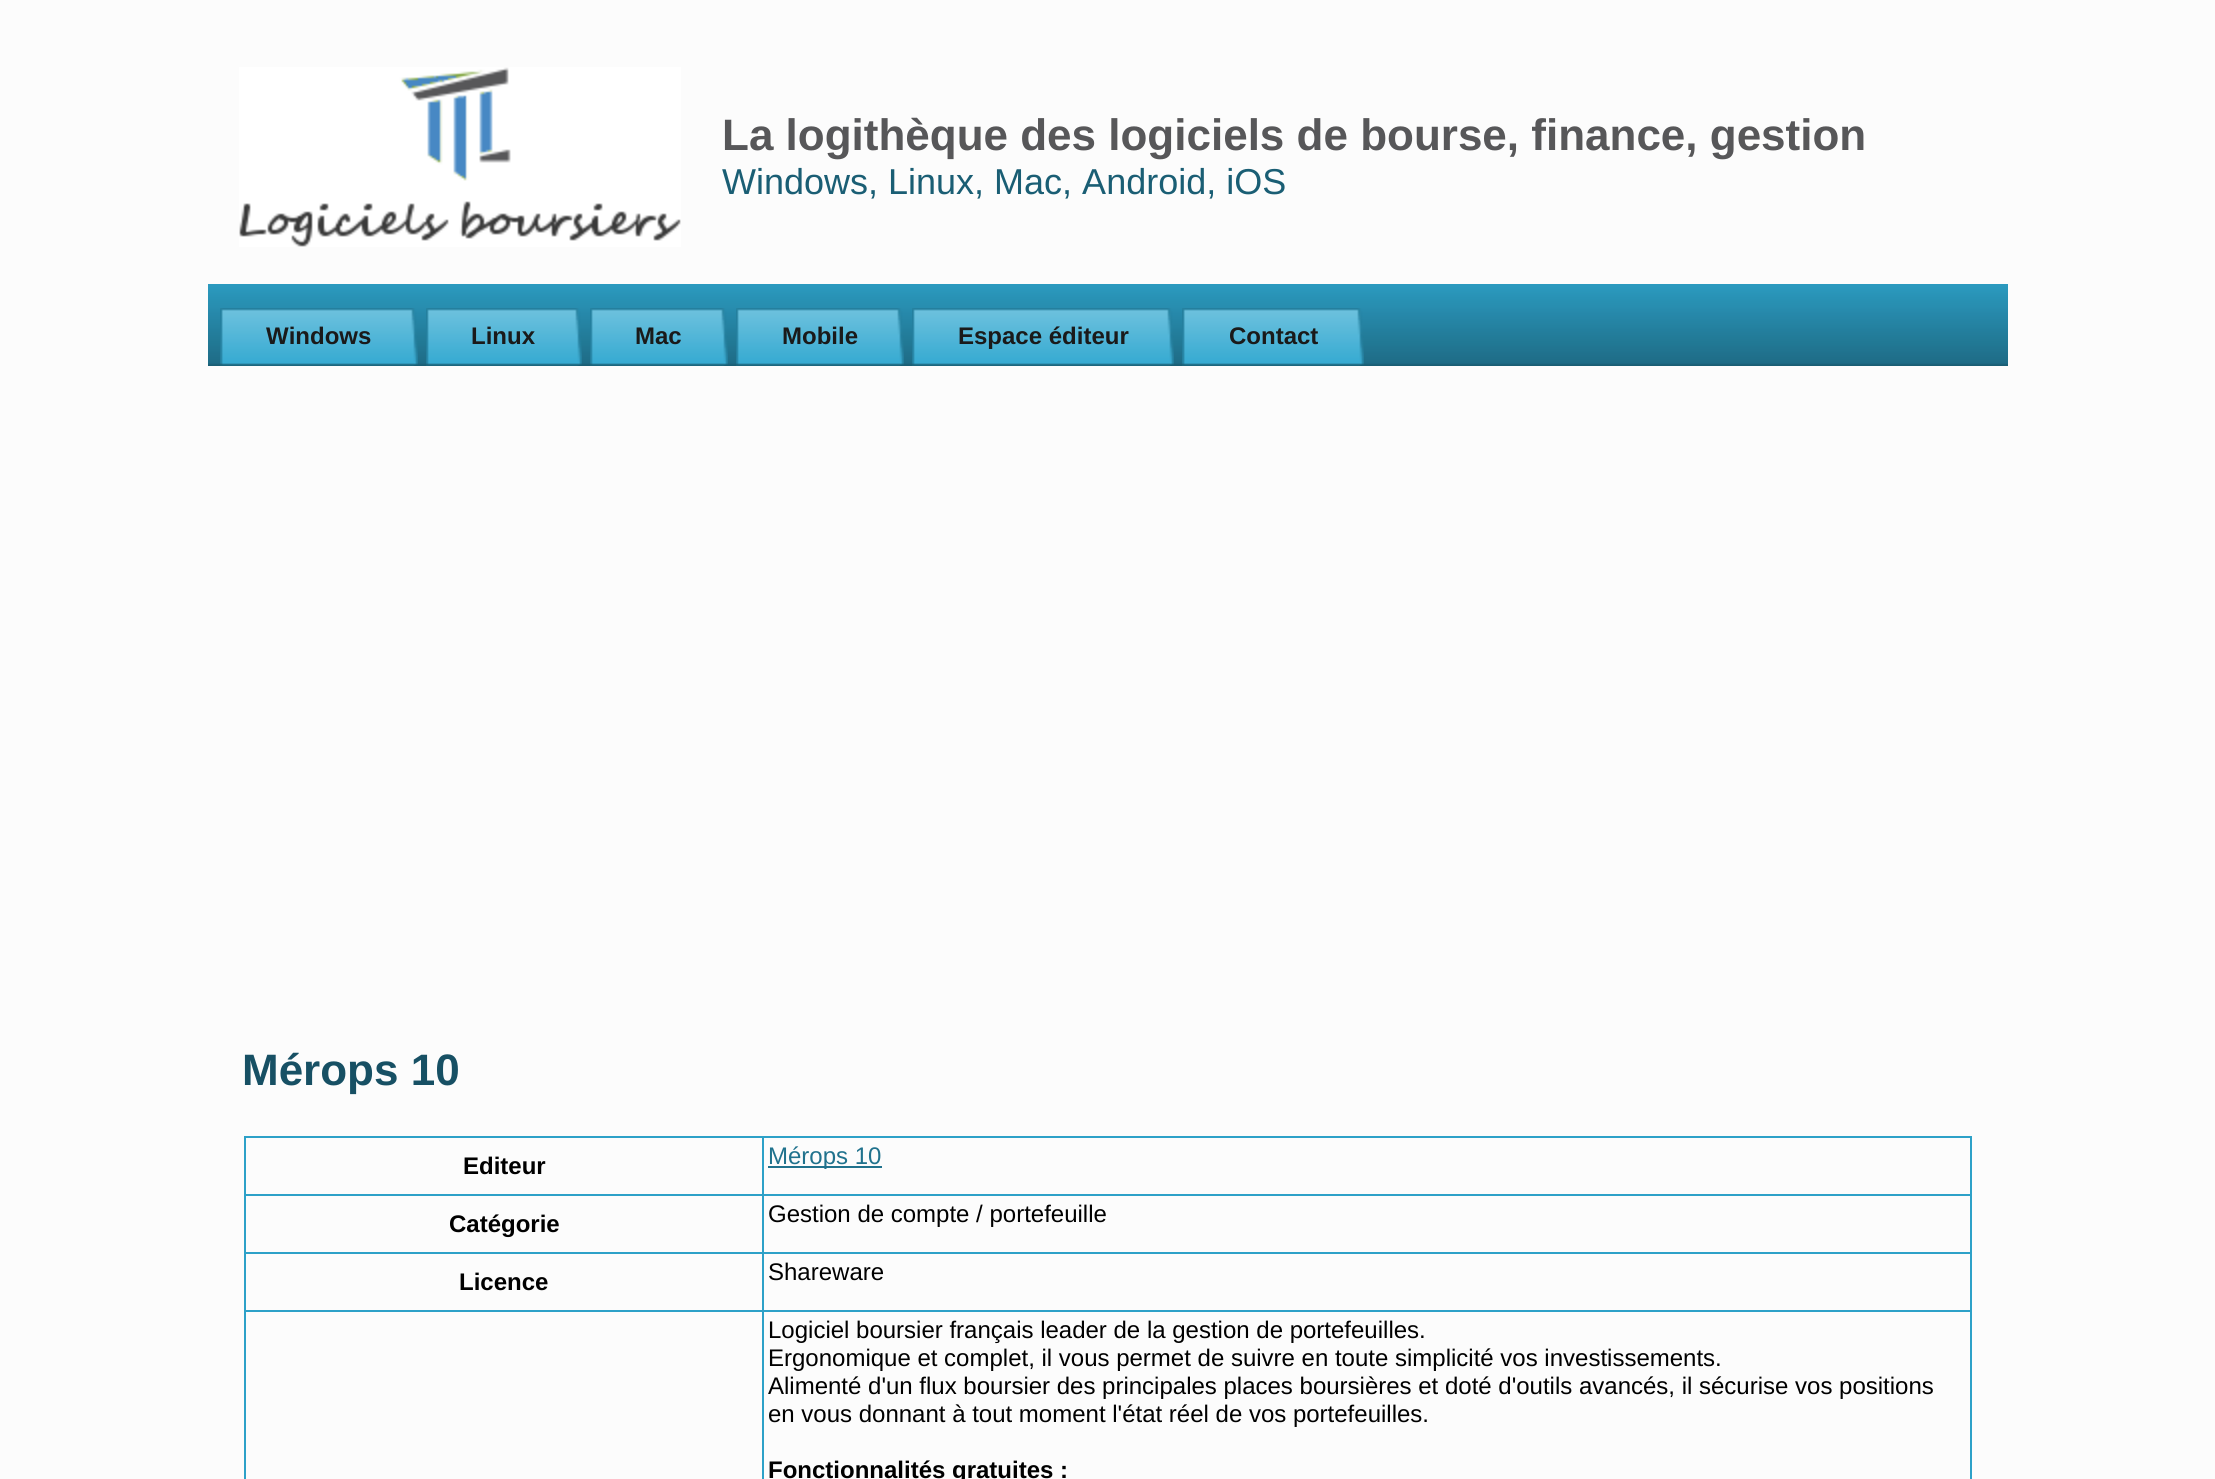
#include <cairo.h>
#include <math.h>
#include <stddef.h>


static void picture(cairo_t *cr, const char *path, double x, double y, double w, double h) {
    cairo_surface_t *image = cairo_image_surface_create_from_png(path);
    cairo_save(cr);
    cairo_set_source_surface(cr, image, x, y);
    cairo_rectangle(cr, x, y, w, h);
    cairo_fill(cr);
    cairo_restore(cr);
    cairo_surface_destroy(image);
}

int main(void) {
    cairo_surface_t *surface = cairo_image_surface_create(CAIRO_FORMAT_RGB24, 2215, 1479);
    cairo_t *cr = cairo_create(surface);
    cairo_font_options_t *options = cairo_font_options_create();
    cairo_font_options_set_hint_metrics(options, CAIRO_HINT_METRICS_OFF);
    cairo_font_options_set_hint_style(options, CAIRO_HINT_STYLE_NONE);
    cairo_set_font_options(cr, options);
    cairo_set_miter_limit(cr, 4);
    cairo_set_source_rgb(cr, 0.988, 0.988, 0.988);
    cairo_paint(cr);
    picture(cr, "img1.png", 239, 67, 442, 180);
    cairo_select_font_face(cr, "Liberation Sans", CAIRO_FONT_SLANT_NORMAL, CAIRO_FONT_WEIGHT_BOLD);
    cairo_set_font_size(cr, 44);
    cairo_set_source_rgb(cr, 0.341, 0.341, 0.349);
    cairo_move_to(cr, 722, 150);
    cairo_show_text(cr, "La logithèque des logiciels de bourse, finance, gestion");
    cairo_select_font_face(cr, "Liberation Sans", CAIRO_FONT_SLANT_NORMAL, CAIRO_FONT_WEIGHT_NORMAL);
    cairo_set_font_size(cr, 36);
    cairo_set_source_rgb(cr, 0.102, 0.369, 0.455);
    cairo_move_to(cr, 722, 194);
    cairo_show_text(cr, "Windows, Linux, Mac, Android, iOS");
    picture(cr, "img2.png", 208, 284, 1800, 82);
    picture(cr, "img3.png", 220, 308, 190, 58);
    picture(cr, "img4.png", 410, 308, 8, 58);
    cairo_select_font_face(cr, "Liberation Sans", CAIRO_FONT_SLANT_NORMAL, CAIRO_FONT_WEIGHT_BOLD);
    cairo_set_font_size(cr, 24);
    cairo_set_source_rgb(cr, 0.102, 0.102, 0.102);
    cairo_move_to(cr, 266, 344);
    cairo_show_text(cr, "Windows");
    picture(cr, "img5.png", 426, 308, 148, 58);
    picture(cr, "img4.png", 574, 308, 8, 58);
    cairo_move_to(cr, 471, 344);
    cairo_show_text(cr, "Linux");
    picture(cr, "img6.png", 590, 308, 130, 58);
    picture(cr, "img4.png", 720, 308, 8, 58);
    cairo_move_to(cr, 635, 344);
    cairo_show_text(cr, "Mac");
    picture(cr, "img7.png", 736, 308, 160, 58);
    picture(cr, "img4.png", 896, 308, 8, 58);
    cairo_move_to(cr, 782, 344);
    cairo_show_text(cr, "Mobile");
    picture(cr, "img8.png", 912, 308, 254, 58);
    picture(cr, "img4.png", 1166, 308, 8, 58);
    cairo_move_to(cr, 958, 344);
    cairo_show_text(cr, "Espace éditeur");
    picture(cr, "img9.png", 1182, 308, 174, 58);
    picture(cr, "img4.png", 1356, 308, 8, 58);
    cairo_move_to(cr, 1229, 344);
    cairo_show_text(cr, "Contact");
    cairo_set_font_size(cr, 44);
    cairo_set_source_rgb(cr, 0.09, 0.314, 0.392);
    cairo_move_to(cr, 242, 1085);
    cairo_show_text(cr, "Mérops 10");
    cairo_set_source_rgb(cr, 0.176, 0.631, 0.784);
    cairo_rectangle(cr, 762, 1136, 1210, 2);
    cairo_fill(cr);
    cairo_rectangle(cr, 762, 1194, 1210, 2);
    cairo_fill(cr);
    cairo_rectangle(cr, 762, 1252, 1210, 2);
    cairo_fill(cr);
    cairo_rectangle(cr, 762, 1310, 1210, 2);
    cairo_fill(cr);
    cairo_rectangle(cr, 762, 1310, 2, 169);
    cairo_fill(cr);
    cairo_rectangle(cr, 244, 1310, 520, 2);
    cairo_fill(cr);
    cairo_rectangle(cr, 762, 1252, 2, 60);
    cairo_fill(cr);
    cairo_rectangle(cr, 244, 1252, 520, 2);
    cairo_fill(cr);
    cairo_rectangle(cr, 762, 1194, 2, 60);
    cairo_fill(cr);
    cairo_rectangle(cr, 244, 1194, 520, 2);
    cairo_fill(cr);
    cairo_rectangle(cr, 762, 1136, 2, 60);
    cairo_fill(cr);
    cairo_rectangle(cr, 244, 1136, 520, 2);
    cairo_fill(cr);
    cairo_rectangle(cr, 244, 1310, 2, 169);
    cairo_fill(cr);
    cairo_rectangle(cr, 244, 1252, 2, 60);
    cairo_fill(cr);
    cairo_rectangle(cr, 244, 1194, 2, 60);
    cairo_fill(cr);
    cairo_rectangle(cr, 244, 1136, 2, 60);
    cairo_fill(cr);
    cairo_set_font_size(cr, 24);
    cairo_set_source_rgb(cr, 0, 0, 0);
    cairo_move_to(cr, 463, 1174);
    cairo_show_text(cr, "Editeur");
    cairo_set_source_rgb(cr, 0.176, 0.631, 0.784);
    cairo_rectangle(cr, 1970, 1310, 2, 169);
    cairo_fill(cr);
    cairo_rectangle(cr, 1970, 1252, 2, 60);
    cairo_fill(cr);
    cairo_rectangle(cr, 1970, 1194, 2, 60);
    cairo_fill(cr);
    cairo_rectangle(cr, 1970, 1136, 2, 60);
    cairo_fill(cr);
    cairo_set_source_rgb(cr, 0.125, 0.447, 0.553);
    cairo_rectangle(cr, 768, 1166, 114, 2);
    cairo_fill(cr);
    cairo_select_font_face(cr, "Liberation Sans", CAIRO_FONT_SLANT_NORMAL, CAIRO_FONT_WEIGHT_NORMAL);
    cairo_move_to(cr, 768, 1164);
    cairo_show_text(cr, "Mérops 10");
    cairo_select_font_face(cr, "Liberation Sans", CAIRO_FONT_SLANT_NORMAL, CAIRO_FONT_WEIGHT_BOLD);
    cairo_set_source_rgb(cr, 0, 0, 0);
    cairo_move_to(cr, 449, 1232);
    cairo_show_text(cr, "Catégorie");
    cairo_select_font_face(cr, "Liberation Sans", CAIRO_FONT_SLANT_NORMAL, CAIRO_FONT_WEIGHT_NORMAL);
    cairo_move_to(cr, 768, 1222);
    cairo_show_text(cr, "Gestion de compte / portefeuille");
    cairo_select_font_face(cr, "Liberation Sans", CAIRO_FONT_SLANT_NORMAL, CAIRO_FONT_WEIGHT_BOLD);
    cairo_move_to(cr, 459, 1290);
    cairo_show_text(cr, "Licence");
    cairo_select_font_face(cr, "Liberation Sans", CAIRO_FONT_SLANT_NORMAL, CAIRO_FONT_WEIGHT_NORMAL);
    cairo_move_to(cr, 768, 1280);
    cairo_show_text(cr, "Shareware");
    cairo_move_to(cr, 768, 1338);
    cairo_show_text(cr, "Logiciel boursier français leader de la gestion de portefeuilles.");
    cairo_move_to(cr, 768, 1366);
    cairo_show_text(cr, "Ergonomique et complet, il vous permet de suivre en toute simplicité vos investissements.");
    cairo_move_to(cr, 768, 1394);
    cairo_show_text(cr, "Alimenté d'un flux boursier des principales places boursières et doté d'outils avancés, il sécurise vos positions");
    cairo_move_to(cr, 768, 1422);
    cairo_show_text(cr, "en vous donnant à tout moment l'état réel de vos portefeuilles.");
    cairo_select_font_face(cr, "Liberation Sans", CAIRO_FONT_SLANT_NORMAL, CAIRO_FONT_WEIGHT_BOLD);
    cairo_move_to(cr, 768, 1478);
    cairo_show_text(cr, "Fonctionnalités gratuites :");
    cairo_surface_write_to_png(surface, "page.png");
    cairo_font_options_destroy(options);
    cairo_destroy(cr);
    cairo_surface_destroy(surface);
    return 0;
}
